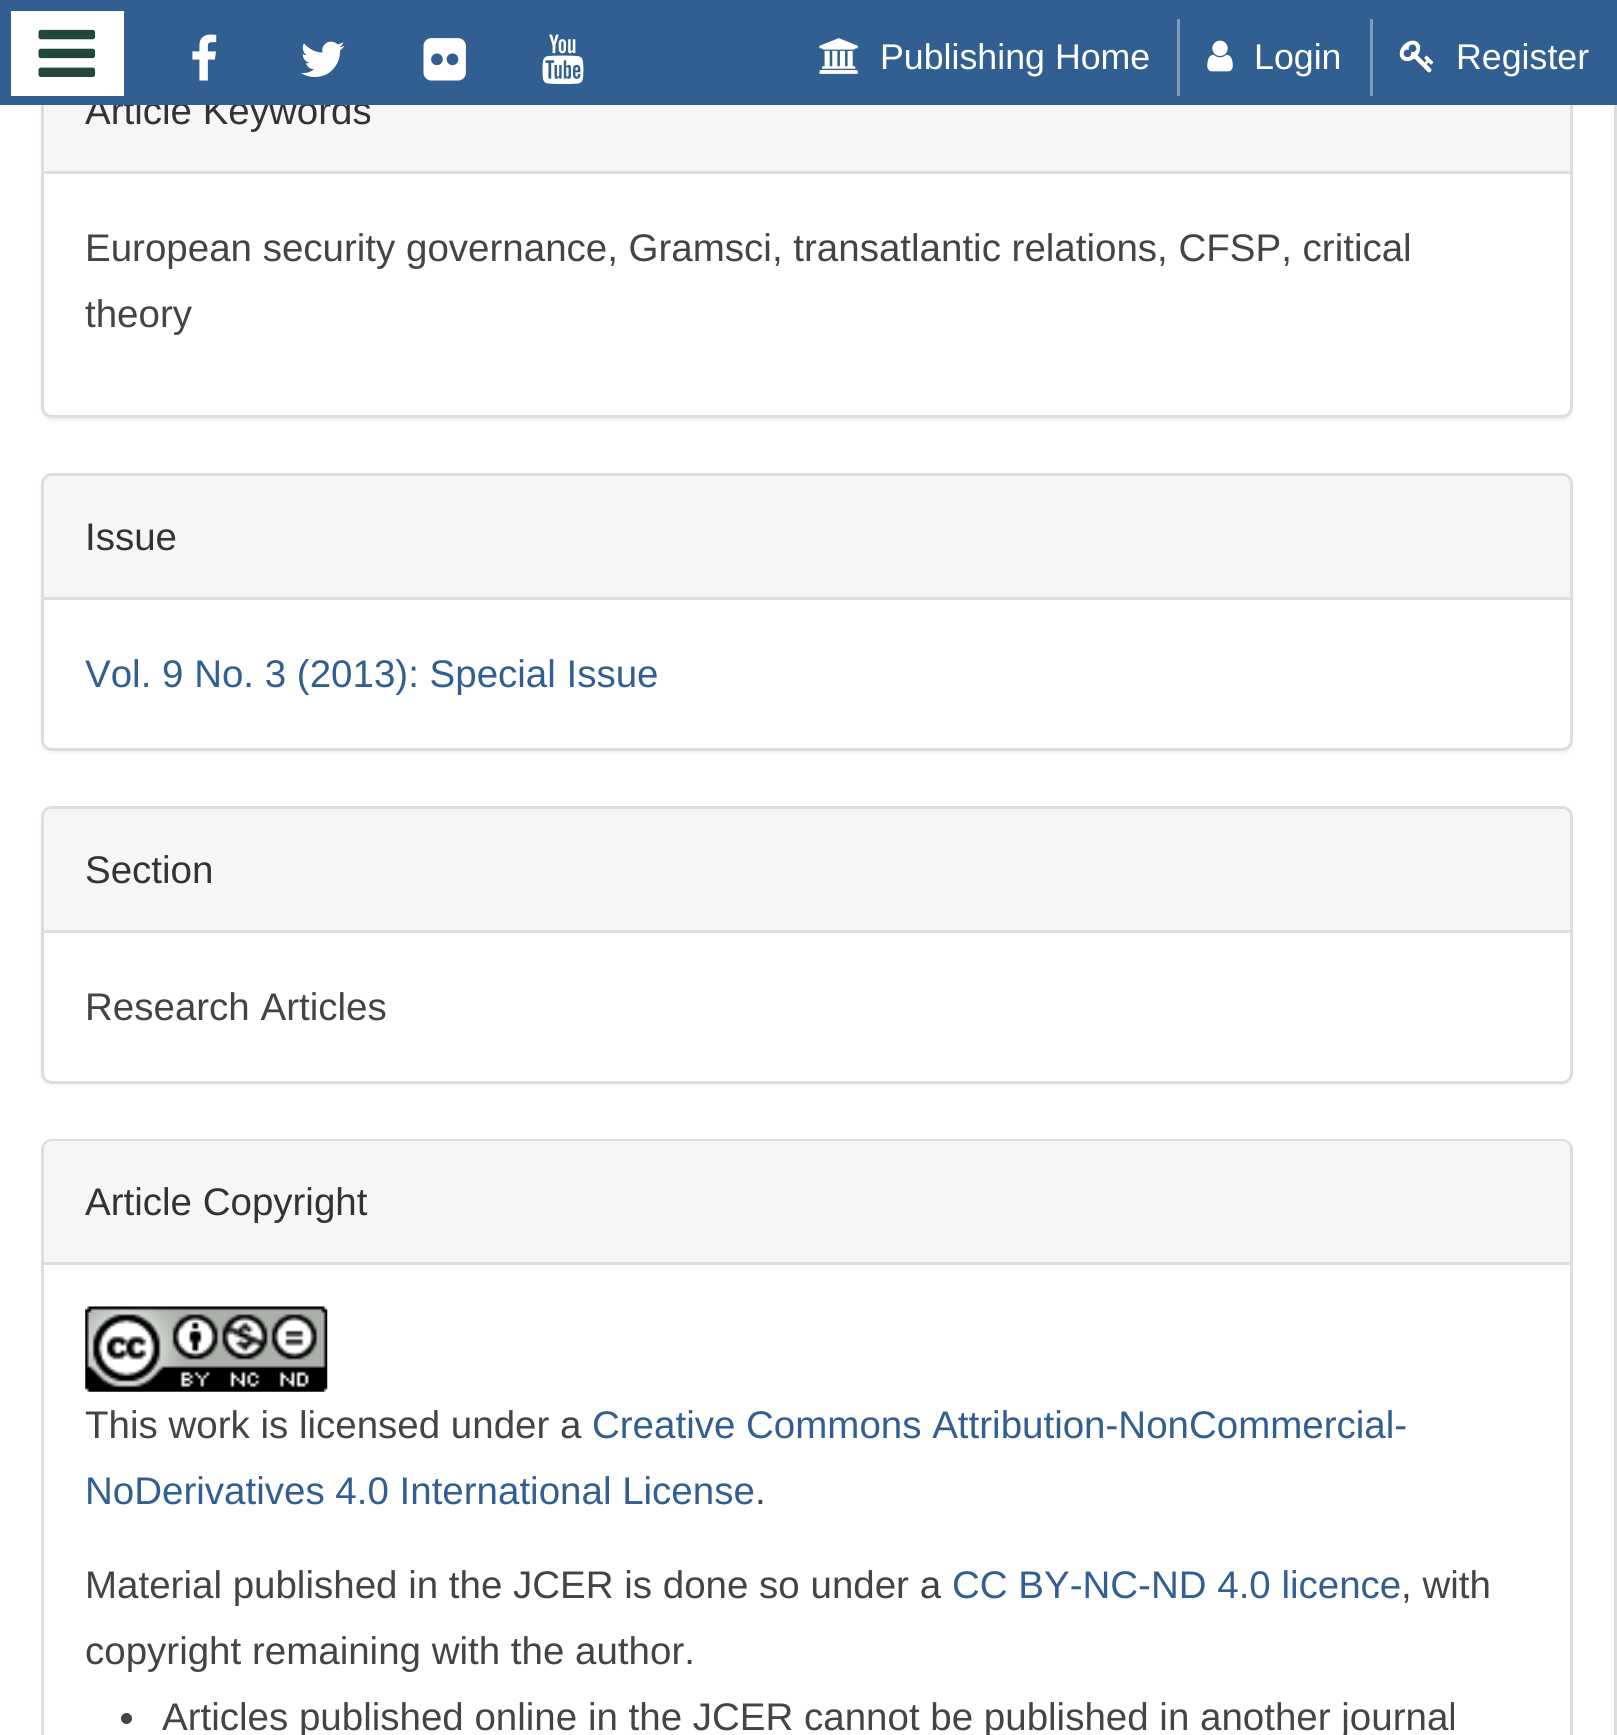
#include <cairo.h>
#include <math.h>
#include <stddef.h>


static void round_rect(cairo_t *cr, double x, double y, double w, double h, double r) {
    cairo_new_sub_path(cr);
    cairo_arc(cr, x + w - r, y + h - r, r, 0, M_PI / 2);
    cairo_arc(cr, x + r, y + h - r, r, M_PI / 2, M_PI);
    cairo_arc(cr, x + r, y + r, r, M_PI, 1.5 * M_PI);
    cairo_arc(cr, x + w - r, y + r, r, 1.5 * M_PI, 2 * M_PI);
    cairo_close_path(cr);
}

static void shadow(cairo_t *cr, double x, double y, double w, double h, double r, double blur, double alpha) {
    cairo_push_group_with_content(cr, CAIRO_CONTENT_ALPHA);
    cairo_set_operator(cr, CAIRO_OPERATOR_SOURCE);
    for (int i = 15; i >= -15 && fmin(w, h) + blur * i / 3 > 0; i -= 2) {
        double e = blur * i / 6;
        cairo_set_source_rgba(cr, 0, 0, 0, alpha * erfc((i - 1) / 8.5) / 2);
        round_rect(cr, x - e, y - e, w + 2 * e, h + 2 * e, fmax(0, fmin(r + e + blur * .6, fmin(w, h) / 2 + e)));
        cairo_fill(cr);
    }
    cairo_pattern_t *soft = cairo_pop_group(cr);
    cairo_mask(cr, soft);
    cairo_pattern_destroy(soft);
}

static void picture(cairo_t *cr, const char *path, double x, double y, double w, double h) {
    cairo_surface_t *image = cairo_image_surface_create_from_png(path);
    cairo_save(cr);
    cairo_set_source_surface(cr, image, x, y);
    cairo_rectangle(cr, x, y, w, h);
    cairo_fill(cr);
    cairo_restore(cr);
    cairo_surface_destroy(image);
}

int main(void) {
    cairo_surface_t *surface = cairo_image_surface_create(CAIRO_FORMAT_RGB24, 1617, 1735);
    cairo_t *cr = cairo_create(surface);
    cairo_font_options_t *options = cairo_font_options_create();
    cairo_font_options_set_hint_metrics(options, CAIRO_HINT_METRICS_OFF);
    cairo_font_options_set_hint_style(options, CAIRO_HINT_STYLE_NONE);
    cairo_set_font_options(cr, options);
    cairo_set_miter_limit(cr, 4);
    cairo_set_source_rgb(cr, 1, 1, 1);
    cairo_paint(cr);
    cairo_set_source_rgb(cr, 0, 0, 0);
    shadow(cr, 41, 50, 1532, 371, 11, 1.5, 0.05);
    cairo_set_source_rgb(cr, 1, 1, 1);
    round_rect(cr, 42.5, 48.5, 1529, 368, 9.5);
    cairo_fill_preserve(cr);
    cairo_set_source_rgb(cr, 0.867, 0.867, 0.867);
    cairo_set_line_width(cr, 3);
    cairo_stroke(cr);
    cairo_set_source_rgb(cr, 0.961, 0.961, 0.961);
    cairo_rectangle(cr, 44, 105, 1526, 66);
    cairo_fill(cr);
    cairo_select_font_face(cr, "Liberation Sans", CAIRO_FONT_SLANT_NORMAL, CAIRO_FONT_WEIGHT_NORMAL);
    cairo_set_font_size(cr, 38.5);
    cairo_set_source_rgb(cr, 0.2, 0.2, 0.2);
    cairo_move_to(cr, 85, 124);
    cairo_show_text(cr, "Article Keywords");
    cairo_set_source_rgb(cr, 0.196, 0.373, 0.569);
    cairo_rectangle(cr, 0, 0, 1617, 105);
    cairo_fill(cr);
    cairo_set_source_rgb(cr, 1, 1, 1);
    cairo_rectangle(cr, 11, 11, 113, 85);
    cairo_fill(cr);
    picture(cr, "img1.png", 38, 29, 58, 48);
    picture(cr, "img2.png", 192, 34, 25, 47);
    picture(cr, "img3.png", 301, 41, 44, 36);
    picture(cr, "img4.png", 423, 38, 43, 43);
    picture(cr, "img5.png", 542, 34, 42, 51);
    cairo_set_source_rgb(cr, 0.502, 0.612, 0.733);
    cairo_rectangle(cr, 1177, 19, 3, 77);
    cairo_fill(cr);
    picture(cr, "img6.png", 819, 38, 39, 36);
    cairo_set_font_size(cr, 35.75);
    cairo_set_source_rgb(cr, 1, 1, 1);
    cairo_move_to(cr, 880, 69);
    cairo_show_text(cr, "Publishing Home");
    cairo_set_source_rgb(cr, 0.502, 0.612, 0.733);
    cairo_rectangle(cr, 1370, 19, 3, 77);
    cairo_fill(cr);
    picture(cr, "img7.png", 1207, 40, 26, 32);
    cairo_set_source_rgb(cr, 1, 1, 1);
    cairo_move_to(cr, 1254, 69);
    cairo_show_text(cr, "Login");
    picture(cr, "img8.png", 1399, 40, 35, 33);
    cairo_move_to(cr, 1456, 69);
    cairo_show_text(cr, "Register");
    cairo_set_source_rgb(cr, 0.867, 0.867, 0.867);
    cairo_rectangle(cr, 1614, 105, 3, 1630);
    cairo_fill(cr);
    cairo_rectangle(cr, 44, 171, 1526, 3);
    cairo_fill(cr);
    cairo_set_font_size(cr, 38.5);
    cairo_set_source_rgb(cr, 0.267, 0.267, 0.267);
    cairo_move_to(cr, 85, 261);
    cairo_show_text(cr, "European security governance, Gramsci, transatlantic relations, CFSP, critical");
    cairo_move_to(cr, 85, 327);
    cairo_show_text(cr, "theory");
    cairo_set_source_rgb(cr, 0, 0, 0);
    shadow(cr, 41, 476, 1532, 278, 11, 1.5, 0.05);
    cairo_set_source_rgb(cr, 1, 1, 1);
    round_rect(cr, 42.5, 474.5, 1529, 275, 9.5);
    cairo_fill_preserve(cr);
    cairo_set_source_rgb(cr, 0.867, 0.867, 0.867);
    cairo_stroke(cr);
    cairo_set_source_rgb(cr, 0.961, 0.961, 0.961);
    cairo_new_path(cr);
    cairo_move_to(cr, 52, 476);
    cairo_line_to(cr, 1562, 476);
    cairo_curve_to(cr, 1566.5, 476, 1570, 479.5, 1570, 484);
    cairo_line_to(cr, 1570, 600);
    cairo_line_to(cr, 44, 600);
    cairo_line_to(cr, 44, 484);
    cairo_curve_to(cr, 44, 479.5, 47.5, 476, 52, 476);
    cairo_close_path(cr);
    cairo_fill(cr);
    cairo_set_source_rgb(cr, 0.867, 0.867, 0.867);
    cairo_rectangle(cr, 44, 597, 1526, 3);
    cairo_fill(cr);
    cairo_set_source_rgb(cr, 0.2, 0.2, 0.2);
    cairo_move_to(cr, 85, 550);
    cairo_show_text(cr, "Issue");
    cairo_set_source_rgb(cr, 0.196, 0.373, 0.569);
    cairo_move_to(cr, 85, 687);
    cairo_show_text(cr, "Vol. 9 No. 3 (2013): Special Issue");
    cairo_set_source_rgb(cr, 0, 0, 0);
    shadow(cr, 41, 809, 1532, 277, 11, 1.5, 0.05);
    cairo_set_source_rgb(cr, 1, 1, 1);
    round_rect(cr, 42.5, 807.5, 1529, 275, 9.5);
    cairo_fill_preserve(cr);
    cairo_set_source_rgb(cr, 0.867, 0.867, 0.867);
    cairo_stroke(cr);
    cairo_set_source_rgb(cr, 0.961, 0.961, 0.961);
    cairo_new_path(cr);
    cairo_move_to(cr, 52, 809);
    cairo_line_to(cr, 1562, 809);
    cairo_curve_to(cr, 1566.5, 809, 1570, 812.5, 1570, 817);
    cairo_line_to(cr, 1570, 932);
    cairo_line_to(cr, 44, 932);
    cairo_line_to(cr, 44, 817);
    cairo_curve_to(cr, 44, 812.5, 47.5, 809, 52, 809);
    cairo_close_path(cr);
    cairo_fill(cr);
    cairo_set_source_rgb(cr, 0.867, 0.867, 0.867);
    cairo_rectangle(cr, 44, 930, 1526, 3);
    cairo_fill(cr);
    cairo_set_source_rgb(cr, 0.2, 0.2, 0.2);
    cairo_move_to(cr, 85, 883);
    cairo_show_text(cr, "Section");
    cairo_set_source_rgb(cr, 0.267, 0.267, 0.267);
    cairo_move_to(cr, 85, 1020);
    cairo_show_text(cr, "Research Articles");
    round_rect(cr, 42.5, 1140.5, 1529, 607, 9.5);
    cairo_set_source_rgb(cr, 0.867, 0.867, 0.867);
    cairo_stroke(cr);
    cairo_set_source_rgb(cr, 0.961, 0.961, 0.961);
    cairo_new_path(cr);
    cairo_move_to(cr, 52, 1141);
    cairo_line_to(cr, 1562, 1141);
    cairo_curve_to(cr, 1566.5, 1141, 1570, 1144.5, 1570, 1149);
    cairo_line_to(cr, 1570, 1265);
    cairo_line_to(cr, 44, 1265);
    cairo_line_to(cr, 44, 1149);
    cairo_curve_to(cr, 44, 1144.5, 47.5, 1141, 52, 1141);
    cairo_close_path(cr);
    cairo_fill(cr);
    cairo_set_source_rgb(cr, 0.867, 0.867, 0.867);
    cairo_rectangle(cr, 44, 1262, 1526, 3);
    cairo_fill(cr);
    cairo_set_source_rgb(cr, 0.2, 0.2, 0.2);
    cairo_move_to(cr, 85, 1215);
    cairo_show_text(cr, "Article Copyright");
    picture(cr, "img9.png", 85, 1306, 243, 86);
    cairo_set_source_rgb(cr, 0.267, 0.267, 0.267);
    cairo_move_to(cr, 85, 1438);
    cairo_show_text(cr, "This work is licensed under a");
    cairo_set_source_rgb(cr, 0.196, 0.373, 0.569);
    cairo_move_to(cr, 592, 1438);
    cairo_show_text(cr, "Creative Commons Attribution-NonCommercial-");
    cairo_move_to(cr, 85, 1504);
    cairo_show_text(cr, "NoDerivatives 4.0 International License");
    cairo_set_source_rgb(cr, 0.267, 0.267, 0.267);
    cairo_move_to(cr, 755, 1504);
    cairo_show_text(cr, ".");
    cairo_move_to(cr, 85, 1598);
    cairo_show_text(cr, "Material published in the JCER is done so under a");
    cairo_set_source_rgb(cr, 0.196, 0.373, 0.569);
    cairo_move_to(cr, 952, 1598);
    cairo_show_text(cr, "CC BY-NC-ND 4.0 licence");
    cairo_set_source_rgb(cr, 0.267, 0.267, 0.267);
    cairo_move_to(cr, 1401, 1598);
    cairo_show_text(cr, ", with");
    cairo_move_to(cr, 85, 1664);
    cairo_show_text(cr, "copyright remaining with the author.");
    cairo_new_path(cr);
    cairo_arc(cr, 126.5, 1718.5, 5.5, 0, 2 * M_PI);
    cairo_fill(cr);
    cairo_move_to(cr, 162, 1730);
    cairo_show_text(cr, "Articles published online in the JCER cannot be published in another journal");
    cairo_surface_write_to_png(surface, "page.png");
    cairo_font_options_destroy(options);
    cairo_destroy(cr);
    cairo_surface_destroy(surface);
    return 0;
}
